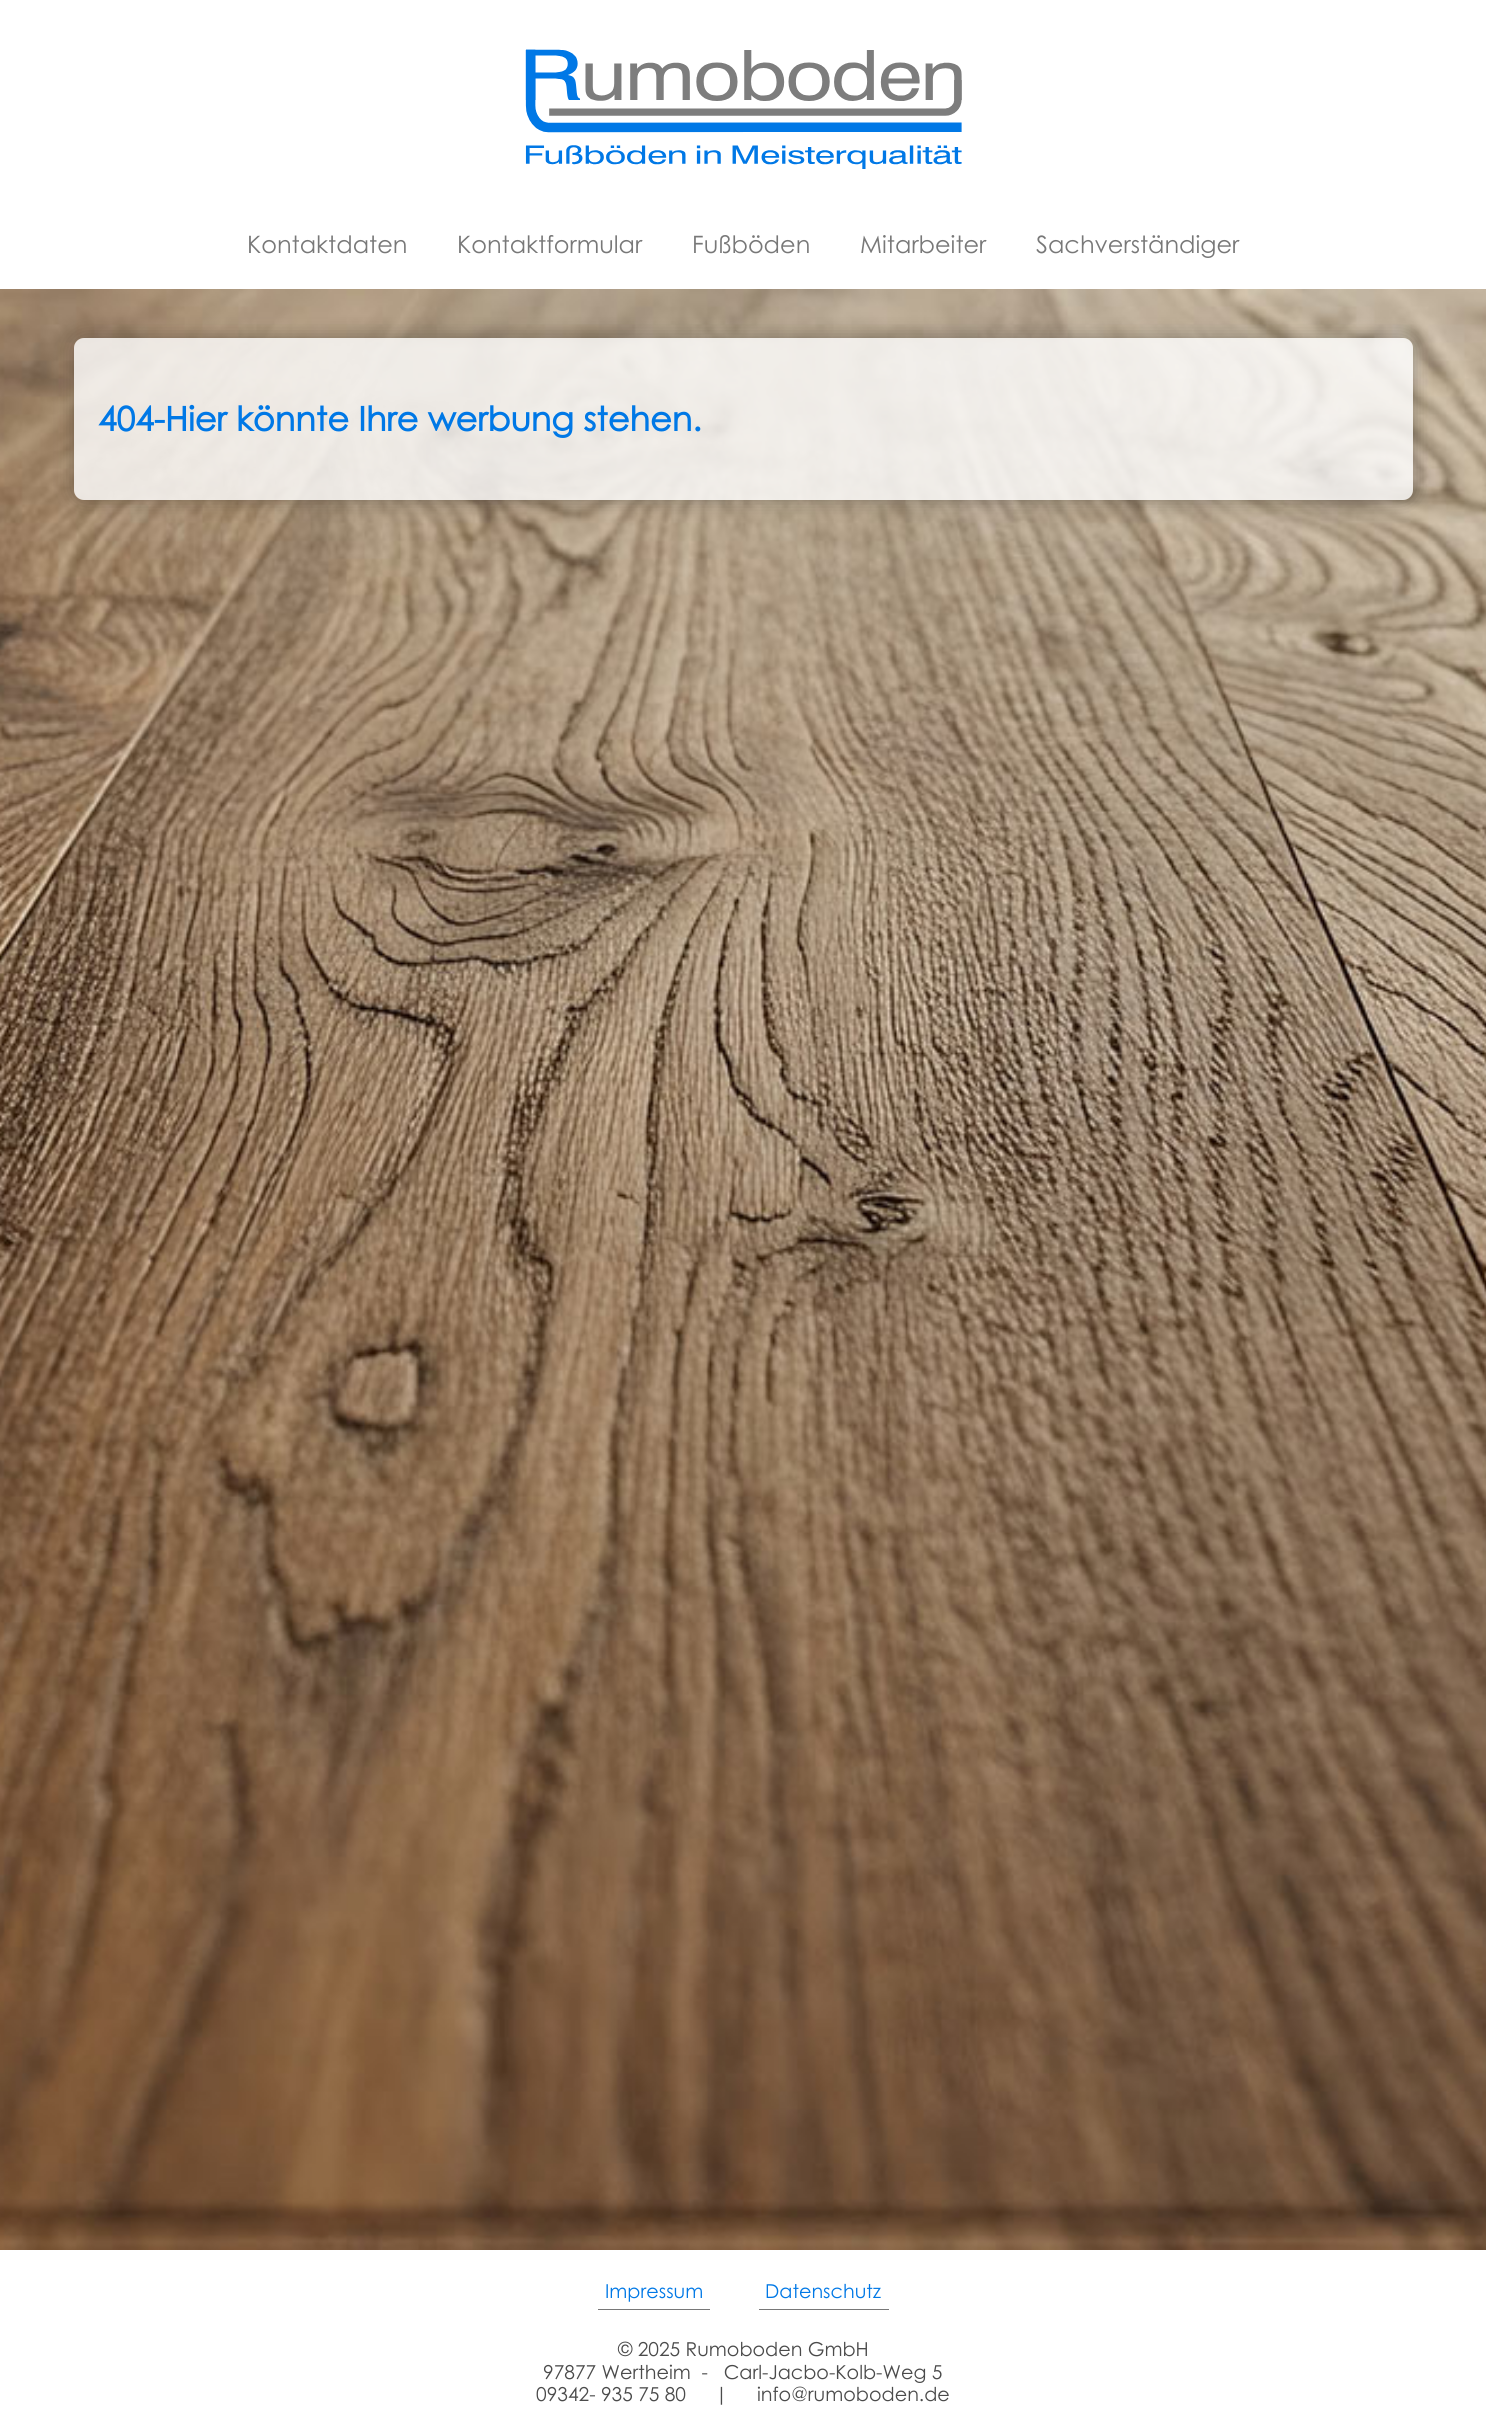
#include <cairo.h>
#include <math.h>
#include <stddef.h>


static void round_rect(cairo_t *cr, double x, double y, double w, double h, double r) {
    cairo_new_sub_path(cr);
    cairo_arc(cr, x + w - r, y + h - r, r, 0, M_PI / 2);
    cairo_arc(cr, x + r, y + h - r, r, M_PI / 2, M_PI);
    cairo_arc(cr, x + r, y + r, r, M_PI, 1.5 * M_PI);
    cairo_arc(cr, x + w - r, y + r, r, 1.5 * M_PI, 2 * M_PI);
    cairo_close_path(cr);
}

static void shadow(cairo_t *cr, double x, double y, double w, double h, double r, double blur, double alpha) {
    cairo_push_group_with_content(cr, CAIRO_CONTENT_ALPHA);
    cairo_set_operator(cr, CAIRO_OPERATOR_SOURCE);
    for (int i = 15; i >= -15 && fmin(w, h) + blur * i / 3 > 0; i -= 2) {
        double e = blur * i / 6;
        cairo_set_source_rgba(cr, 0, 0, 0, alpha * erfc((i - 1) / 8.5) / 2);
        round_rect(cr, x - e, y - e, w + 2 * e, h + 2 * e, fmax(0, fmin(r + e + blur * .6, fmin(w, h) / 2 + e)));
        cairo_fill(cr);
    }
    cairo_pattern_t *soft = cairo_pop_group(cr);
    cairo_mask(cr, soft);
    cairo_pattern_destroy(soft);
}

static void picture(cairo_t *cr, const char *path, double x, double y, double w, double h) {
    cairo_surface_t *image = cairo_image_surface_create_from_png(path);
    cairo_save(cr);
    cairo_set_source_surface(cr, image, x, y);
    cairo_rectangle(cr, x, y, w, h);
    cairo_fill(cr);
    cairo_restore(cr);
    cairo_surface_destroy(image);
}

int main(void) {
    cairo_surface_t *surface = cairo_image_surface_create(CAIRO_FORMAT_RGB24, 1486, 2433);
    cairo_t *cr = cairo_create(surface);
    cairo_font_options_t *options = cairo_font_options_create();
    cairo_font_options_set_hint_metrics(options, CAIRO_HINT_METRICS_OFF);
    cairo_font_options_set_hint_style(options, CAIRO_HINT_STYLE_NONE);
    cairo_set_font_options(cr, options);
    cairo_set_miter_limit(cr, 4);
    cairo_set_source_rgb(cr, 1, 1, 1);
    cairo_paint(cr);
    picture(cr, "img1.png", 525, 49, 437, 120);
    cairo_select_font_face(cr, "Century Gothic", CAIRO_FONT_SLANT_NORMAL, CAIRO_FONT_WEIGHT_NORMAL);
    cairo_set_font_size(cr, 24);
    cairo_set_source_rgb(cr, 0.471, 0.471, 0.471);
    cairo_move_to(cr, 247, 253);
    cairo_show_text(cr, "Kontaktdaten");
    cairo_move_to(cr, 457, 253);
    cairo_show_text(cr, "Kontaktformular");
    cairo_move_to(cr, 692, 253);
    cairo_show_text(cr, "Fußböden");
    cairo_move_to(cr, 860, 253);
    cairo_show_text(cr, "Mitarbeiter");
    cairo_move_to(cr, 1036, 253);
    cairo_show_text(cr, "Sachverständiger");
    picture(cr, "img2.png", 0, 289, 1486, 1961);
    cairo_save(cr);
    cairo_set_fill_rule(cr, CAIRO_FILL_RULE_EVEN_ODD);
    cairo_new_path(cr);
    cairo_move_to(cr, 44, 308);
    cairo_line_to(cr, 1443, 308);
    cairo_line_to(cr, 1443, 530);
    cairo_line_to(cr, 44, 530);
    cairo_close_path(cr);
    cairo_move_to(cr, 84, 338);
    cairo_line_to(cr, 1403, 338);
    cairo_curve_to(cr, 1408.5, 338, 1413, 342.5, 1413, 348);
    cairo_line_to(cr, 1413, 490);
    cairo_curve_to(cr, 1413, 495.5, 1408.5, 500, 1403, 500);
    cairo_line_to(cr, 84, 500);
    cairo_curve_to(cr, 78.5, 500, 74, 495.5, 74, 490);
    cairo_line_to(cr, 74, 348);
    cairo_curve_to(cr, 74, 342.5, 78.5, 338, 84, 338);
    cairo_close_path(cr);
    cairo_clip(cr);
    cairo_set_source_rgb(cr, 0, 0, 0);
    shadow(cr, 74, 338, 1339, 162, 10, 9.5, 0.3);
    cairo_restore(cr);
    cairo_set_source_rgba(cr, 1, 1, 1, 0.8);
    round_rect(cr, 74, 338, 1339, 162, 10);
    cairo_fill(cr);
    cairo_select_font_face(cr, "Century Gothic", CAIRO_FONT_SLANT_NORMAL, CAIRO_FONT_WEIGHT_BOLD);
    cairo_set_font_size(cr, 33.6);
    cairo_set_source_rgb(cr, 0, 0.471, 0.902);
    cairo_move_to(cr, 98, 431);
    cairo_show_text(cr, "404-Hier könnte Ihre werbung stehen.");
    cairo_select_font_face(cr, "Century Gothic", CAIRO_FONT_SLANT_NORMAL, CAIRO_FONT_WEIGHT_NORMAL);
    cairo_set_font_size(cr, 19.2);
    cairo_move_to(cr, 605, 2298);
    cairo_show_text(cr, "Impressum");
    cairo_set_source_rgb(cr, 0.471, 0.471, 0.471);
    cairo_rectangle(cr, 598, 2309, 112, 1);
    cairo_fill(cr);
    cairo_set_source_rgb(cr, 0, 0.471, 0.902);
    cairo_move_to(cr, 765, 2298);
    cairo_show_text(cr, "Datenschutz");
    cairo_set_source_rgb(cr, 0.471, 0.471, 0.471);
    cairo_rectangle(cr, 759, 2309, 130, 1);
    cairo_fill(cr);
    cairo_set_source_rgb(cr, 0.294, 0.294, 0.294);
    cairo_move_to(cr, 618, 2356);
    cairo_show_text(cr, "© 2025 Rumoboden GmbH");
    cairo_move_to(cr, 543, 2379);
    cairo_show_text(cr, "97877 Wertheim  -   Carl-Jacbo-Kolb-Weg 5");
    cairo_move_to(cr, 536, 2401);
    cairo_show_text(cr, "09342- 935 75 80");
    cairo_move_to(cr, 715, 2401);
    cairo_show_text(cr, "|");
    cairo_move_to(cr, 757, 2401);
    cairo_show_text(cr, "info@rumoboden.de");
    cairo_surface_write_to_png(surface, "page.png");
    cairo_font_options_destroy(options);
    cairo_destroy(cr);
    cairo_surface_destroy(surface);
    return 0;
}
